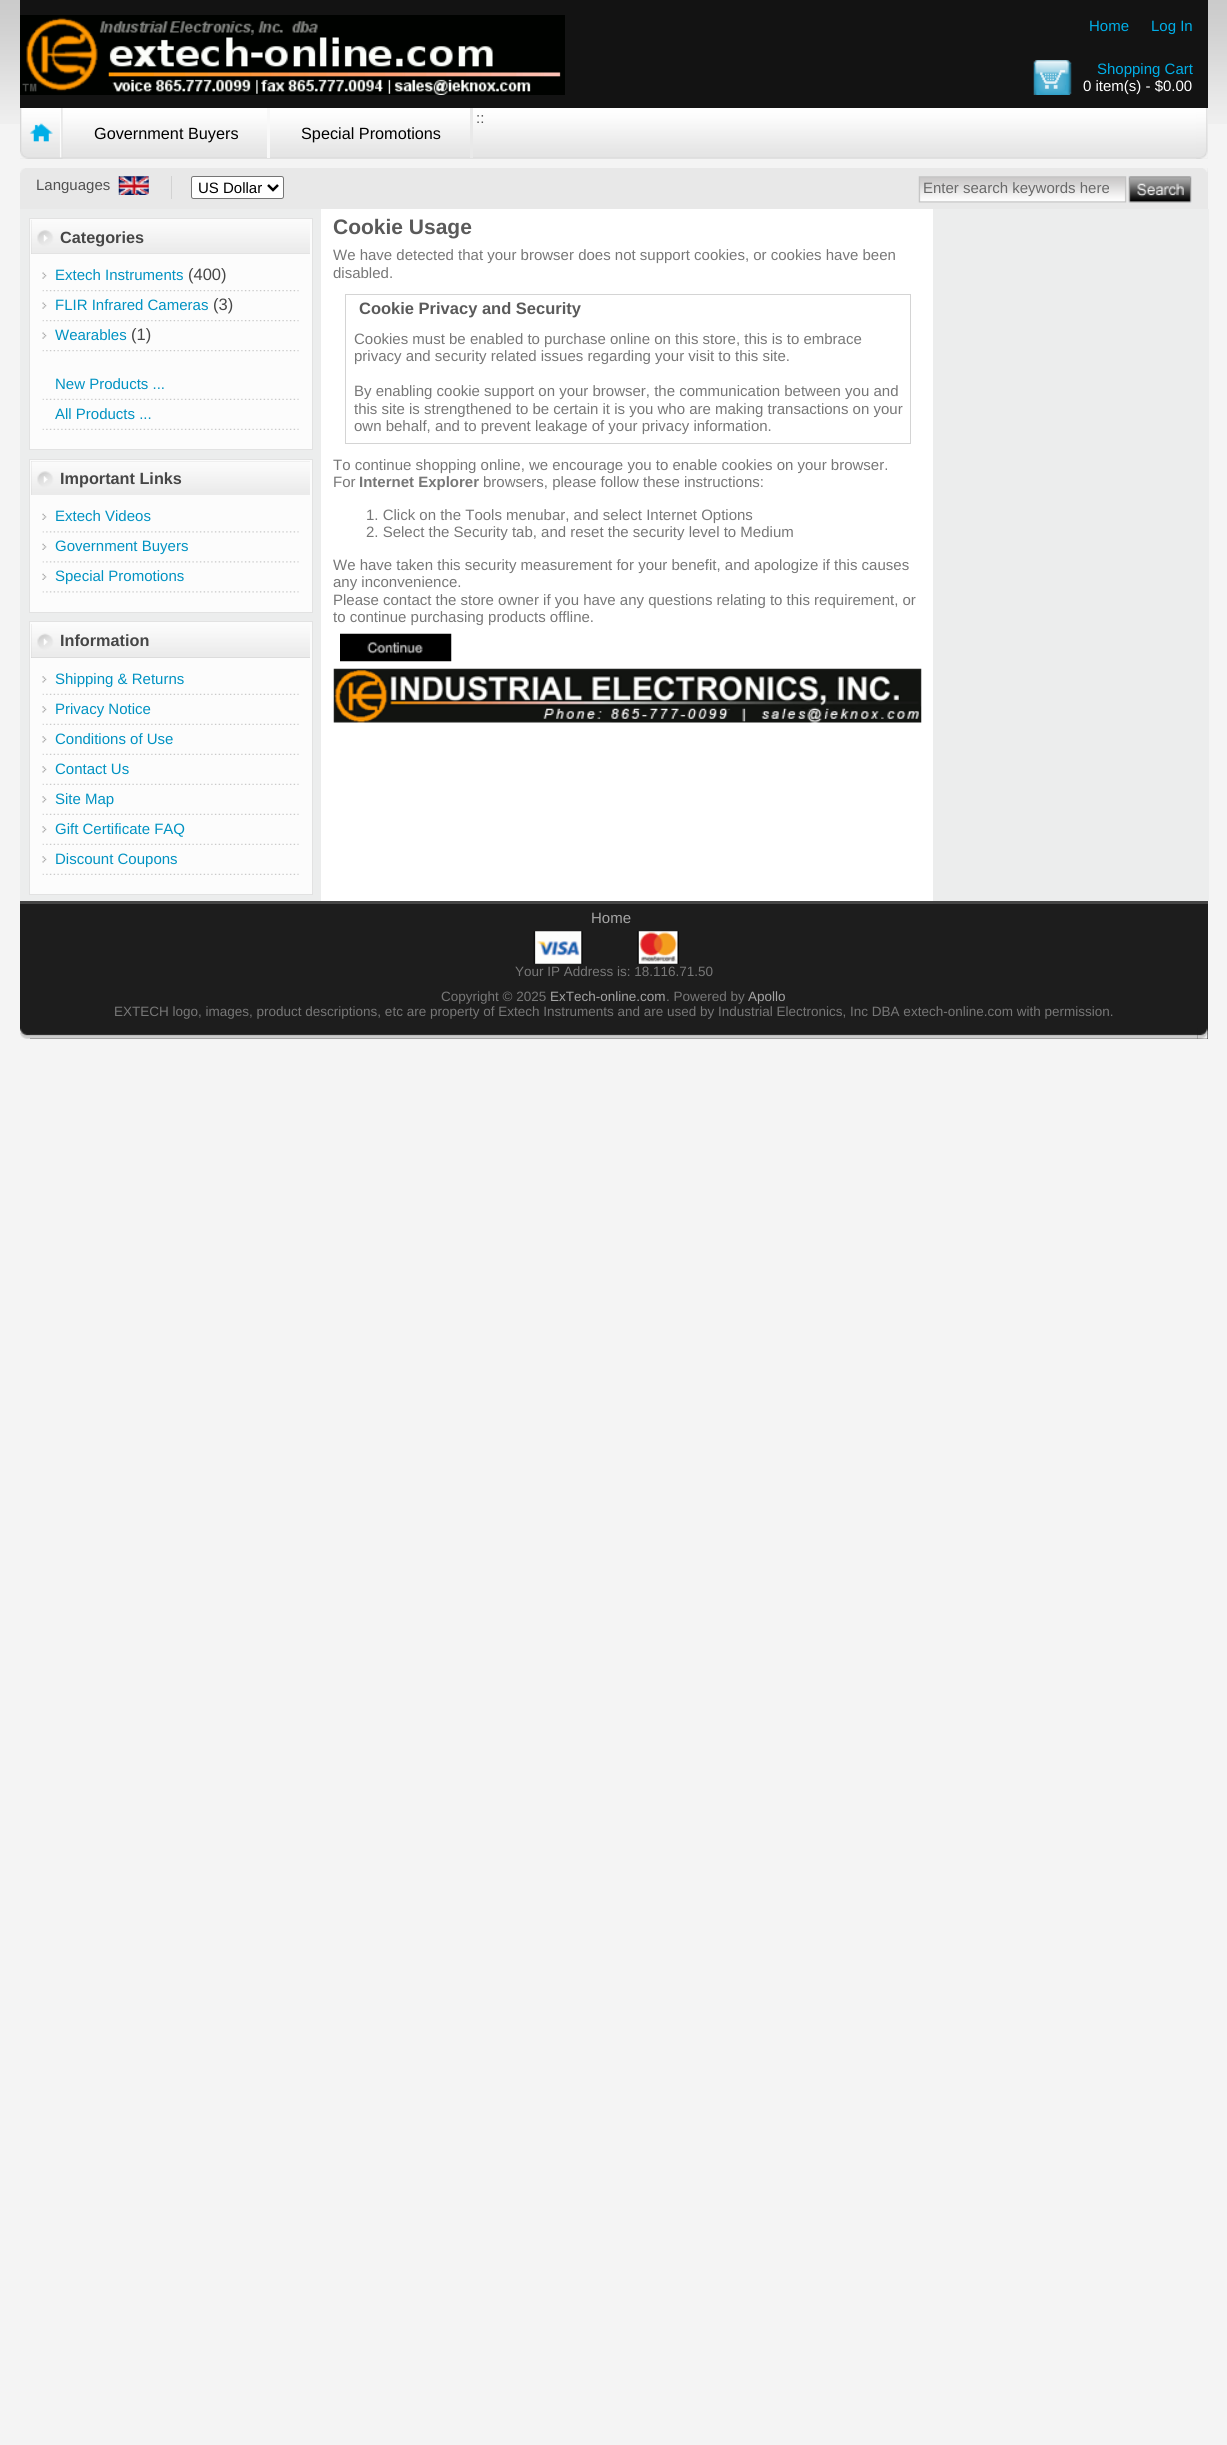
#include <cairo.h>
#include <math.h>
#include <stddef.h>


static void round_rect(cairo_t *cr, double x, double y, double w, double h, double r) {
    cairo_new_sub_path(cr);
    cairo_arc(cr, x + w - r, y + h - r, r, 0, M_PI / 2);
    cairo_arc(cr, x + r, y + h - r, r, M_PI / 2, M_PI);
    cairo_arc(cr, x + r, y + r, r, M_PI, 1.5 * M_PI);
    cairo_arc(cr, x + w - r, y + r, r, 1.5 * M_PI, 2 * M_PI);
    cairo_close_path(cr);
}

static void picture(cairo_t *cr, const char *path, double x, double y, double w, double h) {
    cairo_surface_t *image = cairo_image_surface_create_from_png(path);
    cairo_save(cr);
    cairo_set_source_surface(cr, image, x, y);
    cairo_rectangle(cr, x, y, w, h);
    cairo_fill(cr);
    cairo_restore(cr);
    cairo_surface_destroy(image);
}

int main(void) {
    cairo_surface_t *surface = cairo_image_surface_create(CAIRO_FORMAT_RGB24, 1227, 2445);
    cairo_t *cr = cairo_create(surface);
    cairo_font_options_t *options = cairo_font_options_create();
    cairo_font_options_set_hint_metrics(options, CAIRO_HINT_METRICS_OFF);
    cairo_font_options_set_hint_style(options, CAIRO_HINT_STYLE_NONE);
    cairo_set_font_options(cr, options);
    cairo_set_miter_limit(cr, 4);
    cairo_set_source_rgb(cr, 0.957, 0.957, 0.957);
    cairo_paint(cr);
    picture(cr, "img1.png", 0, 0, 1227, 124);
    cairo_set_source_rgb(cr, 1, 1, 1);
    cairo_rectangle(cr, 20, 209, 913, 830);
    cairo_fill(cr);
    cairo_set_source_rgb(cr, 0.075, 0.075, 0.075);
    cairo_rectangle(cr, 20, 0, 1188, 108);
    cairo_fill(cr);
    picture(cr, "img2.png", 20, 15, 545, 80);
    cairo_select_font_face(cr, "Liberation Sans", CAIRO_FONT_SLANT_NORMAL, CAIRO_FONT_WEIGHT_NORMAL);
    cairo_set_font_size(cr, 15);
    cairo_set_source_rgb(cr, 0, 0.682, 0.906);
    cairo_move_to(cr, 1089, 31);
    cairo_show_text(cr, "Home");
    cairo_move_to(cr, 1151, 31);
    cairo_show_text(cr, "Log In");
    picture(cr, "img3.png", 1033, 60, 39, 35);
    cairo_move_to(cr, 1097, 74);
    cairo_show_text(cr, "Shopping Cart");
    cairo_set_source_rgb(cr, 1, 1, 1);
    cairo_move_to(cr, 1083, 91);
    cairo_show_text(cr, "0 item(s) - $0.00");
    cairo_set_source_rgb(cr, 0.988, 0.988, 0.988);
    cairo_rectangle(cr, 20, 108, 1188, 51);
    cairo_fill(cr);
    picture(cr, "img4.png", 20, 108, 1188, 51);
    picture(cr, "img5.png", 20, 108, 43, 51);
    cairo_set_source_rgb(cr, 0.318, 0.318, 0.318);
    cairo_move_to(cr, 476, 123);
    cairo_show_text(cr, "::");
    cairo_set_source_rgb(cr, 0.969, 0.969, 0.969);
    cairo_rectangle(cr, 267, 108, 3, 50);
    cairo_fill(cr);
    cairo_set_font_size(cr, 16.25);
    cairo_set_source_rgb(cr, 0, 0, 0);
    cairo_move_to(cr, 94, 139);
    cairo_show_text(cr, "Government Buyers");
    cairo_set_source_rgb(cr, 0.914, 0.914, 0.914);
    cairo_rectangle(cr, 470, 108, 3, 50);
    cairo_fill(cr);
    cairo_set_source_rgb(cr, 0, 0, 0);
    cairo_move_to(cr, 301, 139);
    cairo_show_text(cr, "Special Promotions");
    picture(cr, "img6.png", 1196, 108, 12, 51);
    cairo_set_source_rgb(cr, 0.91, 0.91, 0.91);
    cairo_rectangle(cr, 20, 168, 1188, 41);
    cairo_fill(cr);
    picture(cr, "img7.png", 1203, 168, 5, 4);
    picture(cr, "img8.png", 20, 168, 5, 5);
    cairo_set_font_size(cr, 15);
    cairo_set_source_rgb(cr, 0.318, 0.318, 0.318);
    cairo_move_to(cr, 36, 190);
    cairo_show_text(cr, "Languages");
    picture(cr, "img9.png", 118, 176, 31, 19);
    cairo_set_source_rgb(cr, 0.824, 0.824, 0.824);
    cairo_rectangle(cr, 171, 176, 1, 23);
    cairo_fill(cr);
    cairo_set_source_rgb(cr, 1, 1, 1);
    round_rect(cr, 191.5, 176.5, 92, 22, 2);
    cairo_fill_preserve(cr);
    cairo_set_source_rgb(cr, 0.463, 0.463, 0.463);
    cairo_set_line_width(cr, 1);
    cairo_stroke(cr);
    cairo_new_path(cr);
    cairo_move_to(cr, 268, 185);
    cairo_line_to(cr, 273, 190);
    cairo_line_to(cr, 278, 185);
    cairo_set_source_rgb(cr, 0, 0, 0);
    cairo_set_line_width(cr, 2.5);
    cairo_stroke(cr);
    cairo_move_to(cr, 198, 193);
    cairo_show_text(cr, "US Dollar");
    picture(cr, "img10.png", 918, 176, 209, 27);
    cairo_set_source_rgb(cr, 0.412, 0.412, 0.412);
    cairo_move_to(cr, 923, 193);
    cairo_show_text(cr, "Enter search keywords here");
    picture(cr, "img11.png", 1128, 176, 64, 27);
    cairo_set_source_rgb(cr, 0.925, 0.929, 0.929);
    cairo_rectangle(cr, 20, 209, 301, 692);
    cairo_fill(cr);
    cairo_set_source_rgb(cr, 0.988, 0.988, 0.988);
    cairo_rectangle(cr, 29.5, 218.5, 283, 231);
    cairo_fill_preserve(cr);
    cairo_set_source_rgb(cr, 0.886, 0.886, 0.886);
    cairo_set_line_width(cr, 1);
    cairo_stroke(cr);
    cairo_set_source_rgb(cr, 0.8, 0.8, 0.8);
    cairo_rectangle(cr, 31, 220, 279, 34);
    cairo_fill(cr);
    picture(cr, "img12.png", 31, 220, 279, 34);
    cairo_select_font_face(cr, "Liberation Sans", CAIRO_FONT_SLANT_NORMAL, CAIRO_FONT_WEIGHT_BOLD);
    cairo_set_font_size(cr, 16.25);
    cairo_set_source_rgb(cr, 0.275, 0.275, 0.275);
    cairo_move_to(cr, 60, 243);
    cairo_show_text(cr, "Categories");
    picture(cr, "img13.png", 42, 290, 257, 2);
    picture(cr, "img14.png", 42, 272, 5, 7);
    cairo_select_font_face(cr, "Liberation Sans", CAIRO_FONT_SLANT_NORMAL, CAIRO_FONT_WEIGHT_NORMAL);
    cairo_set_font_size(cr, 15);
    cairo_set_source_rgb(cr, 0, 0.573, 0.761);
    cairo_move_to(cr, 55, 280);
    cairo_show_text(cr, "Extech Instruments");
    cairo_set_font_size(cr, 16.5);
    cairo_set_source_rgb(cr, 0.275, 0.275, 0.275);
    cairo_move_to(cr, 188, 280);
    cairo_show_text(cr, "(400)");
    picture(cr, "img13.png", 42, 320, 257, 2);
    picture(cr, "img14.png", 42, 302, 5, 7);
    cairo_set_font_size(cr, 15);
    cairo_set_source_rgb(cr, 0, 0.573, 0.761);
    cairo_move_to(cr, 55, 310);
    cairo_show_text(cr, "FLIR Infrared Cameras");
    cairo_set_font_size(cr, 16.5);
    cairo_set_source_rgb(cr, 0.275, 0.275, 0.275);
    cairo_move_to(cr, 213, 310);
    cairo_show_text(cr, "(3)");
    picture(cr, "img13.png", 42, 350, 257, 2);
    picture(cr, "img14.png", 42, 332, 5, 7);
    cairo_set_font_size(cr, 15);
    cairo_set_source_rgb(cr, 0, 0.573, 0.761);
    cairo_move_to(cr, 55, 340);
    cairo_show_text(cr, "Wearables");
    cairo_set_font_size(cr, 16.5);
    cairo_set_source_rgb(cr, 0.275, 0.275, 0.275);
    cairo_move_to(cr, 131, 340);
    cairo_show_text(cr, "(1)");
    picture(cr, "img15.png", 42, 398, 257, 2);
    cairo_set_font_size(cr, 15);
    cairo_set_source_rgb(cr, 0, 0.573, 0.761);
    cairo_move_to(cr, 55, 389);
    cairo_show_text(cr, "New Products ...");
    picture(cr, "img15.png", 42, 428, 257, 2);
    cairo_move_to(cr, 55, 419);
    cairo_show_text(cr, "All Products ...");
    cairo_set_source_rgb(cr, 0.988, 0.988, 0.988);
    cairo_rectangle(cr, 29.5, 459.5, 283, 153);
    cairo_fill_preserve(cr);
    cairo_set_source_rgb(cr, 0.886, 0.886, 0.886);
    cairo_stroke(cr);
    cairo_set_source_rgb(cr, 0.8, 0.8, 0.8);
    cairo_rectangle(cr, 31, 461, 279, 34);
    cairo_fill(cr);
    picture(cr, "img16.png", 31, 461, 279, 34);
    cairo_select_font_face(cr, "Liberation Sans", CAIRO_FONT_SLANT_NORMAL, CAIRO_FONT_WEIGHT_BOLD);
    cairo_set_font_size(cr, 16.25);
    cairo_set_source_rgb(cr, 0.275, 0.275, 0.275);
    cairo_move_to(cr, 60, 484);
    cairo_show_text(cr, "Important Links");
    picture(cr, "img17.png", 42, 531, 257, 2);
    picture(cr, "img18.png", 42, 513, 5, 7);
    cairo_select_font_face(cr, "Liberation Sans", CAIRO_FONT_SLANT_NORMAL, CAIRO_FONT_WEIGHT_NORMAL);
    cairo_set_font_size(cr, 15);
    cairo_set_source_rgb(cr, 0, 0.573, 0.761);
    cairo_move_to(cr, 55, 521);
    cairo_show_text(cr, "Extech Videos");
    picture(cr, "img17.png", 42, 561, 257, 2);
    picture(cr, "img18.png", 42, 543, 5, 7);
    cairo_move_to(cr, 55, 551);
    cairo_show_text(cr, "Government Buyers");
    picture(cr, "img17.png", 42, 591, 257, 2);
    picture(cr, "img18.png", 42, 573, 5, 7);
    cairo_move_to(cr, 55, 581);
    cairo_show_text(cr, "Special Promotions");
    cairo_set_source_rgb(cr, 0.988, 0.988, 0.988);
    cairo_rectangle(cr, 29.5, 621.5, 283, 273);
    cairo_fill_preserve(cr);
    cairo_set_source_rgb(cr, 0.886, 0.886, 0.886);
    cairo_stroke(cr);
    cairo_set_source_rgb(cr, 0.8, 0.8, 0.8);
    cairo_rectangle(cr, 31, 624, 279, 34);
    cairo_fill(cr);
    picture(cr, "img19.png", 31, 624, 279, 34);
    cairo_select_font_face(cr, "Liberation Sans", CAIRO_FONT_SLANT_NORMAL, CAIRO_FONT_WEIGHT_BOLD);
    cairo_set_font_size(cr, 16.25);
    cairo_set_source_rgb(cr, 0.275, 0.275, 0.275);
    cairo_move_to(cr, 60, 646);
    cairo_show_text(cr, "Information");
    picture(cr, "img15.png", 42, 693, 257, 2);
    picture(cr, "img20.png", 42, 676, 5, 7);
    cairo_select_font_face(cr, "Liberation Sans", CAIRO_FONT_SLANT_NORMAL, CAIRO_FONT_WEIGHT_NORMAL);
    cairo_set_font_size(cr, 15);
    cairo_set_source_rgb(cr, 0, 0.573, 0.761);
    cairo_move_to(cr, 55, 684);
    cairo_show_text(cr, "Shipping & Returns");
    picture(cr, "img15.png", 42, 723, 257, 2);
    picture(cr, "img20.png", 42, 706, 5, 7);
    cairo_move_to(cr, 55, 714);
    cairo_show_text(cr, "Privacy Notice");
    picture(cr, "img15.png", 42, 753, 257, 2);
    picture(cr, "img20.png", 42, 736, 5, 7);
    cairo_move_to(cr, 55, 744);
    cairo_show_text(cr, "Conditions of Use");
    picture(cr, "img15.png", 42, 783, 257, 2);
    picture(cr, "img20.png", 42, 766, 5, 7);
    cairo_move_to(cr, 55, 774);
    cairo_show_text(cr, "Contact Us");
    picture(cr, "img15.png", 42, 813, 257, 2);
    picture(cr, "img20.png", 42, 796, 5, 7);
    cairo_move_to(cr, 55, 804);
    cairo_show_text(cr, "Site Map");
    picture(cr, "img15.png", 42, 843, 257, 2);
    picture(cr, "img20.png", 42, 826, 5, 7);
    cairo_move_to(cr, 55, 834);
    cairo_show_text(cr, "Gift Certificate FAQ");
    picture(cr, "img15.png", 42, 873, 257, 2);
    picture(cr, "img20.png", 42, 856, 5, 7);
    cairo_move_to(cr, 55, 864);
    cairo_show_text(cr, "Discount Coupons");
    cairo_select_font_face(cr, "Liberation Sans", CAIRO_FONT_SLANT_NORMAL, CAIRO_FONT_WEIGHT_BOLD);
    cairo_set_font_size(cr, 21);
    cairo_set_source_rgb(cr, 0.353, 0.353, 0.353);
    cairo_move_to(cr, 333, 234);
    cairo_show_text(cr, "Cookie Usage");
    cairo_select_font_face(cr, "Liberation Sans", CAIRO_FONT_SLANT_NORMAL, CAIRO_FONT_WEIGHT_NORMAL);
    cairo_set_font_size(cr, 15);
    cairo_set_source_rgb(cr, 0.467, 0.467, 0.467);
    cairo_move_to(cr, 333, 260);
    cairo_show_text(cr, "We have detected that your browser does not support cookies, or cookies have been");
    cairo_move_to(cr, 333, 278);
    cairo_show_text(cr, "disabled.");
    cairo_rectangle(cr, 345.5, 294.5, 565, 149);
    cairo_set_source_rgb(cr, 0.831, 0.831, 0.831);
    cairo_stroke(cr);
    cairo_select_font_face(cr, "Liberation Sans", CAIRO_FONT_SLANT_NORMAL, CAIRO_FONT_WEIGHT_BOLD);
    cairo_set_font_size(cr, 16.5);
    cairo_set_source_rgb(cr, 0.353, 0.353, 0.353);
    cairo_move_to(cr, 359, 314);
    cairo_show_text(cr, "Cookie Privacy and Security");
    cairo_select_font_face(cr, "Liberation Sans", CAIRO_FONT_SLANT_NORMAL, CAIRO_FONT_WEIGHT_NORMAL);
    cairo_set_font_size(cr, 15);
    cairo_set_source_rgb(cr, 0.467, 0.467, 0.467);
    cairo_move_to(cr, 354, 344);
    cairo_show_text(cr, "Cookies must be enabled to purchase online on this store, this is to embrace");
    cairo_move_to(cr, 354, 361);
    cairo_show_text(cr, "privacy and security related issues regarding your visit to this site.");
    cairo_move_to(cr, 354, 396);
    cairo_show_text(cr, "By enabling cookie support on your browser, the communication between you and");
    cairo_move_to(cr, 354, 414);
    cairo_show_text(cr, "this site is strengthened to be certain it is you who are making transactions on your");
    cairo_move_to(cr, 354, 431);
    cairo_show_text(cr, "own behalf, and to prevent leakage of your privacy information.");
    cairo_move_to(cr, 333, 470);
    cairo_show_text(cr, "To continue shopping online, we encourage you to enable cookies on your browser.");
    cairo_move_to(cr, 333, 487);
    cairo_show_text(cr, "For");
    cairo_select_font_face(cr, "Liberation Sans", CAIRO_FONT_SLANT_NORMAL, CAIRO_FONT_WEIGHT_BOLD);
    cairo_move_to(cr, 359, 487);
    cairo_show_text(cr, "Internet Explorer");
    cairo_select_font_face(cr, "Liberation Sans", CAIRO_FONT_SLANT_NORMAL, CAIRO_FONT_WEIGHT_NORMAL);
    cairo_move_to(cr, 483, 487);
    cairo_show_text(cr, "browsers, please follow these instructions:");
    cairo_move_to(cr, 366, 520);
    cairo_show_text(cr, "1. Click on the Tools menubar, and select Internet Options");
    cairo_move_to(cr, 366, 537);
    cairo_show_text(cr, "2. Select the Security tab, and reset the security level to Medium");
    cairo_move_to(cr, 333, 570);
    cairo_show_text(cr, "We have taken this security measurement for your benefit, and apologize if this causes");
    cairo_move_to(cr, 333, 587);
    cairo_show_text(cr, "any inconvenience.");
    cairo_move_to(cr, 333, 605);
    cairo_show_text(cr, "Please contact the store owner if you have any questions relating to this requirement, or");
    cairo_move_to(cr, 333, 622);
    cairo_show_text(cr, "to continue purchasing products offline.");
    picture(cr, "img21.png", 340, 633, 112, 29);
    picture(cr, "img22.png", 333, 668, 589, 55);
    cairo_set_source_rgb(cr, 0.925, 0.929, 0.929);
    cairo_rectangle(cr, 933, 209, 276, 692);
    cairo_fill(cr);
    cairo_set_source_rgb(cr, 0.271, 0.271, 0.271);
    cairo_rectangle(cr, 20, 901, 1188, 3);
    cairo_fill(cr);
    cairo_set_source_rgb(cr, 0.114, 0.114, 0.114);
    cairo_rectangle(cr, 20, 904, 1188, 125);
    cairo_fill(cr);
    cairo_set_source_rgb(cr, 0.647, 0.647, 0.647);
    cairo_move_to(cr, 591, 923);
    cairo_show_text(cr, "Home");
    picture(cr, "img23.png", 533, 931, 146, 33);
    cairo_set_font_size(cr, 13.5);
    cairo_set_source_rgb(cr, 0.467, 0.467, 0.467);
    cairo_move_to(cr, 515, 976);
    cairo_show_text(cr, "Your IP Address is: 18.116.71.50");
    cairo_move_to(cr, 441, 1001);
    cairo_show_text(cr, "Copyright © 2025");
    cairo_set_source_rgb(cr, 0.647, 0.647, 0.647);
    cairo_move_to(cr, 550, 1001);
    cairo_show_text(cr, "ExTech-online.com");
    cairo_set_source_rgb(cr, 0.467, 0.467, 0.467);
    cairo_move_to(cr, 666, 1001);
    cairo_show_text(cr, ". Powered by");
    cairo_set_source_rgb(cr, 0.647, 0.647, 0.647);
    cairo_move_to(cr, 748, 1001);
    cairo_show_text(cr, "Apollo");
    cairo_set_source_rgb(cr, 0.467, 0.467, 0.467);
    cairo_move_to(cr, 114, 1016);
    cairo_show_text(cr, "EXTECH logo, images, product descriptions, etc are property of Extech Instruments and are used by Industrial Electronics, Inc DBA extech-online.com with permission.");
    picture(cr, "img24.png", 20, 1028, 10, 11);
    cairo_set_source_rgb(cr, 0.114, 0.114, 0.114);
    cairo_rectangle(cr, 30, 1029, 1178, 10);
    cairo_fill(cr);
    picture(cr, "img26.png", 30, 1034, 1168, 5);
    picture(cr, "img25.png", 1197, 1028, 11, 11);
    cairo_surface_write_to_png(surface, "page.png");
    cairo_font_options_destroy(options);
    cairo_destroy(cr);
    cairo_surface_destroy(surface);
    return 0;
}
